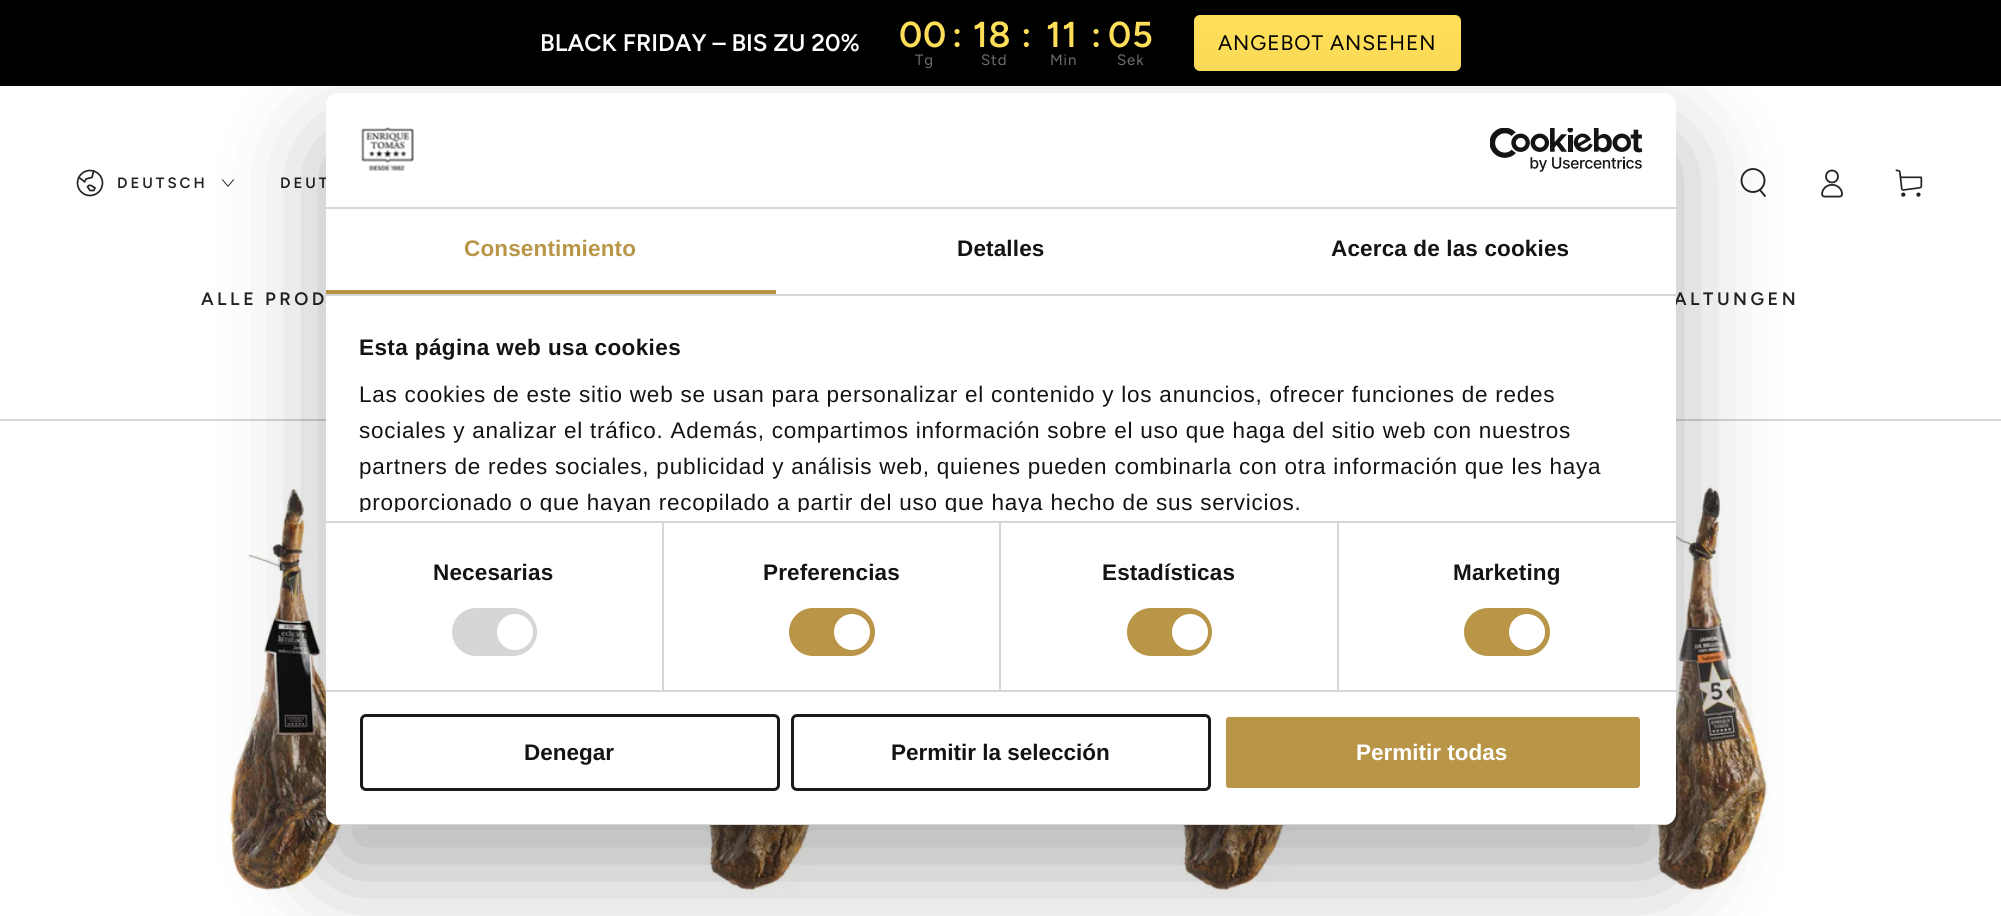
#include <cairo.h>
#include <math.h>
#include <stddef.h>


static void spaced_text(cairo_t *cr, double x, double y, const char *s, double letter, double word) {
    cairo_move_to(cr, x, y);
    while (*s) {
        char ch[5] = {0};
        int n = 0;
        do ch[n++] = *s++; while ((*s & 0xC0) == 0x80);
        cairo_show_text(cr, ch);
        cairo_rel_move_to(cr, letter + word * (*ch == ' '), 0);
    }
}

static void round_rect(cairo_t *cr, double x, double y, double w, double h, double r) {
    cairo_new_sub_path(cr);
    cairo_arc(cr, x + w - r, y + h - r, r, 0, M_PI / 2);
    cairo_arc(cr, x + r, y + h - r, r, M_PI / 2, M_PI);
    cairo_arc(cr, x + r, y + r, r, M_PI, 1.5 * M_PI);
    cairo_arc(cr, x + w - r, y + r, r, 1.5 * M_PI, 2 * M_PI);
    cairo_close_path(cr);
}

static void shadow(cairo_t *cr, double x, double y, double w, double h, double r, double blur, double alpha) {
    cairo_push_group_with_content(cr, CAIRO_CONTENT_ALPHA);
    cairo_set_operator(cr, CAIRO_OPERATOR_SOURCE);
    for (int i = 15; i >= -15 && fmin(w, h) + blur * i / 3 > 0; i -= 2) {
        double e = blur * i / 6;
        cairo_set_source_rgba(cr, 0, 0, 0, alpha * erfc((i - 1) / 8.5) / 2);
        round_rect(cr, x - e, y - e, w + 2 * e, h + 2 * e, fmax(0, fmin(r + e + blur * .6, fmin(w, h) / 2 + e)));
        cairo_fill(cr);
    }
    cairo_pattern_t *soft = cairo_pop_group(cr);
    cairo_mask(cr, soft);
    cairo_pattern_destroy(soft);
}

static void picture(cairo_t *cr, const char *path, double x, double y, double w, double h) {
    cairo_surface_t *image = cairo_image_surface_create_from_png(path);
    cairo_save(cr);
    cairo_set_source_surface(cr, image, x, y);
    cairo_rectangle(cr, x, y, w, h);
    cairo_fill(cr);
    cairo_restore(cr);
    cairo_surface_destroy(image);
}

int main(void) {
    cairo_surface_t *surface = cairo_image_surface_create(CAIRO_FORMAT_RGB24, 2001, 916);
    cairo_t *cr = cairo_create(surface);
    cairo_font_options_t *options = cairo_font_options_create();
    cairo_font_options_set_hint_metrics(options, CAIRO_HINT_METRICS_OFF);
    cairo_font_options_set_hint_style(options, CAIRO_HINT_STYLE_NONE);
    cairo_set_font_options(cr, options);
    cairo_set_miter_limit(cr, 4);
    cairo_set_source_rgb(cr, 1, 1, 1);
    cairo_paint(cr);
    cairo_set_source_rgb(cr, 0, 0, 0);
    cairo_rectangle(cr, 0, 0, 2001, 86);
    cairo_fill(cr);
    cairo_select_font_face(cr, "Figtree SemiBold", CAIRO_FONT_SLANT_NORMAL, CAIRO_FONT_WEIGHT_NORMAL);
    cairo_set_font_size(cr, 24);
    cairo_set_source_rgb(cr, 1, 1, 1);
    cairo_move_to(cr, 540, 51);
    cairo_show_text(cr, "BLACK FRIDAY – BIS ZU 20%");
    cairo_set_font_size(cr, 36);
    cairo_set_source_rgb(cr, 1, 0.871, 0.349);
    spaced_text(cr, 899, 47, "00", 0.9, 0);
    spaced_text(cr, 952, 47, ": 18 :", 0.9, 0);
    spaced_text(cr, 1046, 47, "11", 0.9, 0);
    spaced_text(cr, 1091, 47, ":", 0.9, 0);
    spaced_text(cr, 1108, 47, "05", 0.9, 0);
    cairo_select_font_face(cr, "Figtree", CAIRO_FONT_SLANT_NORMAL, CAIRO_FONT_WEIGHT_NORMAL);
    cairo_set_font_size(cr, 15);
    cairo_set_source_rgb(cr, 0.439, 0.439, 0.439);
    spaced_text(cr, 915, 65, "Tg", 0.9, 0);
    spaced_text(cr, 981, 65, "Std", 0.9, 0);
    spaced_text(cr, 1050, 65, "Min", 0.9, 0);
    spaced_text(cr, 1117, 65, "Sek", 0.9, 0);
    cairo_set_source_rgb(cr, 1, 0.871, 0.349);
    round_rect(cr, 1194, 15, 267, 56, 6);
    cairo_fill(cr);
    cairo_set_font_size(cr, 21);
    cairo_set_source_rgb(cr, 0, 0, 0);
    spaced_text(cr, 1218, 50, "ANGEBOT ANSEHEN", 0.9, 0);
    picture(cr, "img1.png", 76, 169, 28, 28);
    cairo_select_font_face(cr, "Figtree SemiBold", CAIRO_FONT_SLANT_NORMAL, CAIRO_FONT_WEIGHT_NORMAL);
    cairo_set_font_size(cr, 15);
    cairo_set_source_rgb(cr, 0.129, 0.137, 0.149);
    spaced_text(cr, 117, 188, "DEUTSCH", 3, 0);
    picture(cr, "img2.png", 222, 179, 12, 8);
    spaced_text(cr, 280, 188, "DEUT", 3, 0);
    cairo_new_path(cr);
    cairo_arc(cr, 1753, 180.5, 11.5, 0, 2 * M_PI);
    cairo_set_line_width(cr, 1.9);
    cairo_stroke(cr);
    cairo_new_path(cr);
    cairo_move_to(cr, 1760, 190);
    cairo_line_to(cr, 1765, 196);
    cairo_set_line_cap(cr, CAIRO_LINE_CAP_ROUND);
    cairo_stroke(cr);
    picture(cr, "img3.png", 1821, 169, 22, 29);
    picture(cr, "img4.png", 1895, 169, 28, 28);
    cairo_set_font_size(cr, 18);
    spaced_text(cr, 201, 305, "ALLE PROD", 3.5, 0);
    spaced_text(cr, 1674, 305, "ALTUNGEN", 3.5, 0);
    cairo_set_source_rgb(cr, 0.824, 0.835, 0.851);
    cairo_rectangle(cr, 0, 419, 2001, 2);
    cairo_fill(cr);
    picture(cr, "img5.png", 227, 486, 129, 408);
    picture(cr, "img6.png", 706, 825, 119, 69);
    picture(cr, "img7.png", 1180, 825, 118, 69);
    picture(cr, "img8.png", 1654, 485, 115, 408);
    cairo_set_source_rgb(cr, 0, 0, 0);
    shadow(cr, 326, 141, 1350, 732, 12, 51, 0.3);
    cairo_set_source_rgb(cr, 1, 1, 1);
    round_rect(cr, 326, 93, 1350, 732, 12);
    cairo_fill(cr);
    cairo_set_source_rgb(cr, 0.839, 0.839, 0.839);
    cairo_rectangle(cr, 326, 207, 1350, 2);
    cairo_fill(cr);
    picture(cr, "img9.png", 361, 127, 53, 44);
    picture(cr, "img10.png", 1490, 128, 153, 44);
    cairo_rectangle(cr, 326, 294, 1350, 2);
    cairo_fill(cr);
    cairo_set_source_rgb(cr, 0.725, 0.584, 0.282);
    cairo_rectangle(cr, 326, 290, 450, 4);
    cairo_fill(cr);
    cairo_select_font_face(cr, "Liberation Sans", CAIRO_FONT_SLANT_NORMAL, CAIRO_FONT_WEIGHT_BOLD);
    cairo_set_font_size(cr, 22.5);
    spaced_text(cr, 464, 256, "Consentimiento", 0.15, 0);
    cairo_set_source_rgb(cr, 0.078, 0.078, 0.078);
    spaced_text(cr, 957, 256, "Detalles", 0.15, 0);
    spaced_text(cr, 1331, 256, "Acerca de las cookies", 0.15, 0);
    cairo_set_source_rgb(cr, 0.839, 0.839, 0.839);
    cairo_rectangle(cr, 662, 522, 2, 168);
    cairo_fill(cr);
    cairo_rectangle(cr, 999, 522, 2, 168);
    cairo_fill(cr);
    cairo_rectangle(cr, 1337, 522, 2, 168);
    cairo_fill(cr);
    cairo_rectangle(cr, 326, 521, 1350, 2);
    cairo_fill(cr);
    cairo_set_source_rgb(cr, 0.078, 0.078, 0.078);
    spaced_text(cr, 359, 355, "Esta página web usa cookies", 0.4, 0);
    cairo_select_font_face(cr, "Liberation Sans", CAIRO_FONT_SLANT_NORMAL, CAIRO_FONT_WEIGHT_NORMAL);
    spaced_text(cr, 359, 402, "Las cookies de este sitio web se usan para personalizar el contenido y los anuncios, ofrecer funciones de redes", 0.75, 0);
    spaced_text(cr, 359, 438, "sociales y analizar el tráfico. Además, compartimos información sobre el uso que haga del sitio web con nuestros", 0.75, 0);
    spaced_text(cr, 359, 474, "partners de redes sociales, publicidad y análisis web, quienes pueden combinarla con otra información que les haya", 0.75, 0);
    cairo_save(cr);
    cairo_rectangle(cr, 335, 305, 1332, 207);
    cairo_clip(cr);
    spaced_text(cr, 359, 510, "proporcionado o que hayan recopilado a partir del uso que haya hecho de sus servicios.", 0.75, 0);
    cairo_restore(cr);
    cairo_set_source_rgb(cr, 0.839, 0.839, 0.839);
    cairo_rectangle(cr, 326, 690, 1350, 2);
    cairo_fill(cr);
    cairo_select_font_face(cr, "Liberation Sans", CAIRO_FONT_SLANT_NORMAL, CAIRO_FONT_WEIGHT_BOLD);
    cairo_set_source_rgb(cr, 0.078, 0.078, 0.078);
    spaced_text(cr, 433, 580, "Necesarias", 0.15, 0);
    cairo_set_source_rgb(cr, 0.839, 0.839, 0.839);
    round_rect(cr, 452, 608, 85, 48, 24);
    cairo_fill(cr);
    cairo_set_source_rgb(cr, 1, 1, 1);
    cairo_arc(cr, 515, 632, 18, 0, 2 * M_PI);
    cairo_fill(cr);
    cairo_set_source_rgb(cr, 0.078, 0.078, 0.078);
    spaced_text(cr, 763, 580, "Preferencias", 0.15, 0);
    cairo_set_source_rgb(cr, 0.725, 0.584, 0.282);
    round_rect(cr, 789, 608, 86, 48, 24);
    cairo_fill(cr);
    cairo_set_source_rgb(cr, 1, 1, 1);
    cairo_arc(cr, 852, 632, 18, 0, 2 * M_PI);
    cairo_fill(cr);
    cairo_set_source_rgb(cr, 0.078, 0.078, 0.078);
    spaced_text(cr, 1102, 580, "Estadísticas", 0.15, 0);
    cairo_set_source_rgb(cr, 0.725, 0.584, 0.282);
    round_rect(cr, 1127, 608, 85, 48, 24);
    cairo_fill(cr);
    cairo_set_source_rgb(cr, 1, 1, 1);
    cairo_arc(cr, 1190, 632, 18, 0, 2 * M_PI);
    cairo_fill(cr);
    cairo_set_source_rgb(cr, 0.078, 0.078, 0.078);
    spaced_text(cr, 1453, 580, "Marketing", 0.15, 0);
    cairo_set_source_rgb(cr, 0.725, 0.584, 0.282);
    round_rect(cr, 1464, 608, 86, 48, 24);
    cairo_fill(cr);
    cairo_set_source_rgb(cr, 1, 1, 1);
    cairo_arc(cr, 1527, 632, 18, 0, 2 * M_PI);
    cairo_fill(cr);
    cairo_save(cr);
    round_rect(cr, 326, 93, 1350, 732, 12);
    cairo_clip(cr);
    cairo_set_source_rgb(cr, 0.839, 0.839, 0.839);
    cairo_rectangle(cr, 326, 824, 1350, 1);
    cairo_fill(cr);
    cairo_restore(cr);
    round_rect(cr, 361.5, 715.5, 417, 74, 4.5);
    cairo_set_source_rgb(cr, 0.102, 0.102, 0.102);
    cairo_set_line_width(cr, 3);
    cairo_set_line_cap(cr, CAIRO_LINE_CAP_BUTT);
    cairo_stroke(cr);
    cairo_set_source_rgb(cr, 0.078, 0.078, 0.078);
    cairo_move_to(cr, 524, 760);
    cairo_show_text(cr, "Denegar");
    round_rect(cr, 792.5, 715.5, 417, 74, 4.5);
    cairo_set_source_rgb(cr, 0.102, 0.102, 0.102);
    cairo_stroke(cr);
    cairo_set_source_rgb(cr, 0.078, 0.078, 0.078);
    cairo_move_to(cr, 891, 760);
    cairo_show_text(cr, "Permitir la selección");
    cairo_set_source_rgb(cr, 0.725, 0.584, 0.282);
    round_rect(cr, 1224.5, 715.5, 417, 74, 4.5);
    cairo_fill_preserve(cr);
    cairo_set_source_rgb(cr, 1, 1, 1);
    cairo_stroke(cr);
    cairo_move_to(cr, 1356, 760);
    cairo_show_text(cr, "Permitir todas");
    cairo_surface_write_to_png(surface, "page.png");
    cairo_font_options_destroy(options);
    cairo_destroy(cr);
    cairo_surface_destroy(surface);
    return 0;
}
